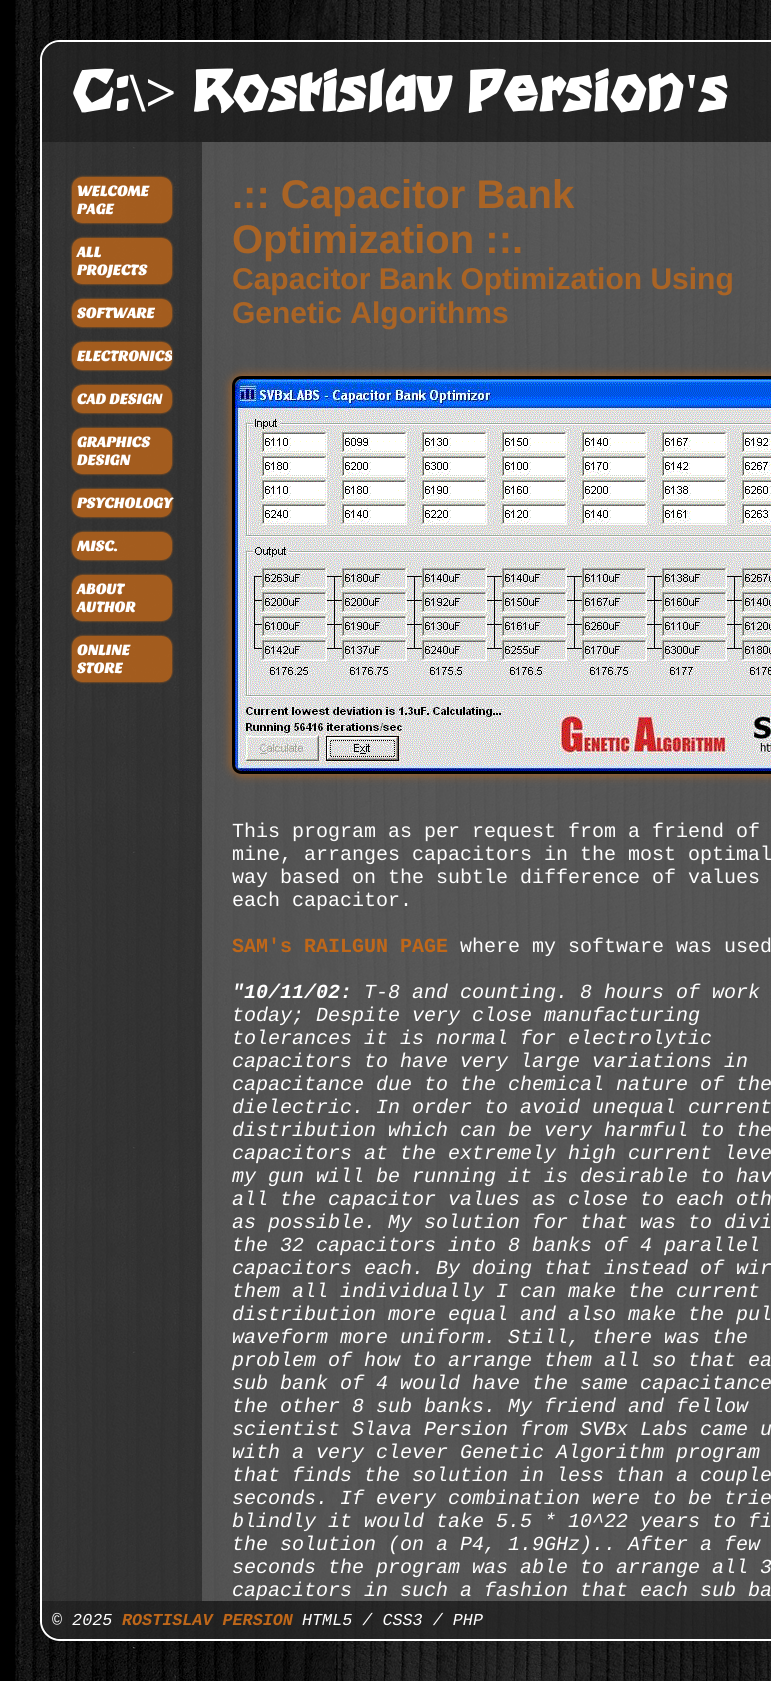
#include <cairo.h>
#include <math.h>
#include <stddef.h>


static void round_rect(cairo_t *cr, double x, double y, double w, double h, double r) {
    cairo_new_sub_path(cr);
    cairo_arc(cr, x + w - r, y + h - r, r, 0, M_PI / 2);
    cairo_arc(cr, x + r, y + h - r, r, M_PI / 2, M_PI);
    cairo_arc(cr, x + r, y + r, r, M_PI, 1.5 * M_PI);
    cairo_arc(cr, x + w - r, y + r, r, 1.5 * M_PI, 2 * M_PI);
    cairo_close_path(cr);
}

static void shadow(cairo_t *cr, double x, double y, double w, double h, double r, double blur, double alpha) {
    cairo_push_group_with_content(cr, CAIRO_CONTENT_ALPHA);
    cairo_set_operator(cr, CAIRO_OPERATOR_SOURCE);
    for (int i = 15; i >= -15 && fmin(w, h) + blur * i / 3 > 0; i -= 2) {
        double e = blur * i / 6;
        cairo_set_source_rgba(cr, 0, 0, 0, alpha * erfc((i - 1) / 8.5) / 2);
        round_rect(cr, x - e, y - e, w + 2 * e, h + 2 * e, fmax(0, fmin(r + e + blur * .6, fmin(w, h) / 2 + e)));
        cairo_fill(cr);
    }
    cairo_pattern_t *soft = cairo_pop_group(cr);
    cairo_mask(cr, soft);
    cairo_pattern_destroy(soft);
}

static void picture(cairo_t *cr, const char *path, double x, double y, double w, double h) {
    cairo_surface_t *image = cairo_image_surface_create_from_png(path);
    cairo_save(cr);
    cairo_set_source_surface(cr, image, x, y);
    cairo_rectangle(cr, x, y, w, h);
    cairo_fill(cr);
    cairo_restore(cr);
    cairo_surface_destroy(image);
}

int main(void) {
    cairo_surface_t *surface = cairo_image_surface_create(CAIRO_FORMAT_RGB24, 771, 1681);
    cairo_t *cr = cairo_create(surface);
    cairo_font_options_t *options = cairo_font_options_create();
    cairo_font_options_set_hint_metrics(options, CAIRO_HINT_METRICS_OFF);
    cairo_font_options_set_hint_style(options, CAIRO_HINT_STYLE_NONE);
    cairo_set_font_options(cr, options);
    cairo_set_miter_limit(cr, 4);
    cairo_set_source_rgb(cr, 0, 0, 0);
    cairo_paint(cr);
    picture(cr, "img1.png", 15, 0, 756, 1681);
    round_rect(cr, 41, 41, 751, 1599, 19);
    cairo_set_source_rgb(cr, 1, 1, 1);
    cairo_stroke(cr);
    cairo_set_source_rgba(cr, 0.157, 0.157, 0.157, 0.8);
    cairo_new_path(cr);
    cairo_move_to(cr, 60, 42);
    cairo_line_to(cr, 771, 42);
    cairo_curve_to(cr, 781, 42, 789, 50, 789, 60);
    cairo_line_to(cr, 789, 142);
    cairo_line_to(cr, 42, 142);
    cairo_line_to(cr, 42, 60);
    cairo_curve_to(cr, 42, 50, 50, 42, 60, 42);
    cairo_close_path(cr);
    cairo_fill(cr);
    cairo_select_font_face(cr, "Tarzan", CAIRO_FONT_SLANT_NORMAL, CAIRO_FONT_WEIGHT_BOLD);
    cairo_set_font_size(cr, 55);
    cairo_set_source_rgb(cr, 1, 1, 1);
    cairo_move_to(cr, 72, 111);
    cairo_show_text(cr, "C:");
    cairo_select_font_face(cr, "Liberation Serif", CAIRO_FONT_SLANT_NORMAL, CAIRO_FONT_WEIGHT_BOLD);
    cairo_move_to(cr, 130, 111);
    cairo_show_text(cr, "\\>");
    cairo_select_font_face(cr, "Tarzan", CAIRO_FONT_SLANT_NORMAL, CAIRO_FONT_WEIGHT_BOLD);
    cairo_move_to(cr, 192, 111);
    cairo_show_text(cr, "Rostislav Persion");
    cairo_select_font_face(cr, "Liberation Serif", CAIRO_FONT_SLANT_NORMAL, CAIRO_FONT_WEIGHT_BOLD);
    cairo_move_to(cr, 684, 111);
    cairo_show_text(cr, "'");
    cairo_select_font_face(cr, "Tarzan", CAIRO_FONT_SLANT_NORMAL, CAIRO_FONT_WEIGHT_BOLD);
    cairo_move_to(cr, 699, 111);
    cairo_show_text(cr, "s");
    cairo_set_source_rgba(cr, 0.235, 0.235, 0.235, 0.8);
    cairo_rectangle(cr, 42, 142, 160, 1459);
    cairo_fill(cr);
    cairo_save(cr);
    cairo_set_fill_rule(cr, CAIRO_FILL_RULE_EVEN_ODD);
    cairo_new_path(cr);
    cairo_move_to(cr, 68, 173);
    cairo_line_to(cr, 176, 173);
    cairo_line_to(cr, 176, 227);
    cairo_line_to(cr, 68, 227);
    cairo_close_path(cr);
    cairo_move_to(cr, 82, 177);
    cairo_line_to(cr, 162, 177);
    cairo_curve_to(cr, 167.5, 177, 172, 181.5, 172, 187);
    cairo_line_to(cr, 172, 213);
    cairo_curve_to(cr, 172, 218.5, 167.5, 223, 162, 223);
    cairo_line_to(cr, 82, 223);
    cairo_curve_to(cr, 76.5, 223, 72, 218.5, 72, 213);
    cairo_line_to(cr, 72, 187);
    cairo_curve_to(cr, 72, 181.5, 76.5, 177, 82, 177);
    cairo_close_path(cr);
    cairo_clip(cr);
    cairo_set_source_rgb(cr, 0.749, 0.404, 0.098);
    shadow(cr, 72, 177, 100, 46, 10, 1, 1);
    cairo_restore(cr);
    cairo_set_source_rgba(cr, 0.749, 0.404, 0.098, 0.8);
    round_rect(cr, 72, 177, 100, 46, 10);
    cairo_fill(cr);
    cairo_select_font_face(cr, "Sansita One", CAIRO_FONT_SLANT_NORMAL, CAIRO_FONT_WEIGHT_BOLD);
    cairo_set_font_size(cr, 15);
    cairo_set_source_rgb(cr, 1, 1, 1);
    cairo_move_to(cr, 77, 196);
    cairo_show_text(cr, "WELCOME");
    cairo_move_to(cr, 77, 214);
    cairo_show_text(cr, "PAGE");
    cairo_save(cr);
    cairo_set_fill_rule(cr, CAIRO_FILL_RULE_EVEN_ODD);
    cairo_new_path(cr);
    cairo_move_to(cr, 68, 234);
    cairo_line_to(cr, 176, 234);
    cairo_line_to(cr, 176, 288);
    cairo_line_to(cr, 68, 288);
    cairo_close_path(cr);
    cairo_move_to(cr, 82, 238);
    cairo_line_to(cr, 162, 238);
    cairo_curve_to(cr, 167.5, 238, 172, 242.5, 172, 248);
    cairo_line_to(cr, 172, 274);
    cairo_curve_to(cr, 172, 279.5, 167.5, 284, 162, 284);
    cairo_line_to(cr, 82, 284);
    cairo_curve_to(cr, 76.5, 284, 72, 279.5, 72, 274);
    cairo_line_to(cr, 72, 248);
    cairo_curve_to(cr, 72, 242.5, 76.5, 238, 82, 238);
    cairo_close_path(cr);
    cairo_clip(cr);
    cairo_set_source_rgb(cr, 0.749, 0.404, 0.098);
    shadow(cr, 72, 238, 100, 46, 10, 1, 1);
    cairo_restore(cr);
    cairo_set_source_rgba(cr, 0.749, 0.404, 0.098, 0.8);
    round_rect(cr, 72, 238, 100, 46, 10);
    cairo_fill(cr);
    cairo_set_source_rgb(cr, 1, 1, 1);
    cairo_move_to(cr, 77, 257);
    cairo_show_text(cr, "ALL");
    cairo_move_to(cr, 77, 275);
    cairo_show_text(cr, "PROJECTS");
    cairo_save(cr);
    cairo_set_fill_rule(cr, CAIRO_FILL_RULE_EVEN_ODD);
    cairo_new_path(cr);
    cairo_move_to(cr, 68, 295);
    cairo_line_to(cr, 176, 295);
    cairo_line_to(cr, 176, 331);
    cairo_line_to(cr, 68, 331);
    cairo_close_path(cr);
    cairo_move_to(cr, 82, 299);
    cairo_line_to(cr, 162, 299);
    cairo_curve_to(cr, 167.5, 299, 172, 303.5, 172, 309);
    cairo_line_to(cr, 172, 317);
    cairo_curve_to(cr, 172, 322.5, 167.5, 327, 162, 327);
    cairo_line_to(cr, 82, 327);
    cairo_curve_to(cr, 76.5, 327, 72, 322.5, 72, 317);
    cairo_line_to(cr, 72, 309);
    cairo_curve_to(cr, 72, 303.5, 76.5, 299, 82, 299);
    cairo_close_path(cr);
    cairo_clip(cr);
    cairo_set_source_rgb(cr, 0.749, 0.404, 0.098);
    shadow(cr, 72, 299, 100, 28, 10, 1, 1);
    cairo_restore(cr);
    cairo_set_source_rgba(cr, 0.749, 0.404, 0.098, 0.8);
    round_rect(cr, 72, 299, 100, 28, 10);
    cairo_fill(cr);
    cairo_set_source_rgb(cr, 1, 1, 1);
    cairo_move_to(cr, 77, 318);
    cairo_show_text(cr, "SOFTWARE");
    cairo_save(cr);
    cairo_set_fill_rule(cr, CAIRO_FILL_RULE_EVEN_ODD);
    cairo_new_path(cr);
    cairo_move_to(cr, 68, 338);
    cairo_line_to(cr, 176, 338);
    cairo_line_to(cr, 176, 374);
    cairo_line_to(cr, 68, 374);
    cairo_close_path(cr);
    cairo_move_to(cr, 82, 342);
    cairo_line_to(cr, 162, 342);
    cairo_curve_to(cr, 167.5, 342, 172, 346.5, 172, 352);
    cairo_line_to(cr, 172, 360);
    cairo_curve_to(cr, 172, 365.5, 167.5, 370, 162, 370);
    cairo_line_to(cr, 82, 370);
    cairo_curve_to(cr, 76.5, 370, 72, 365.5, 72, 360);
    cairo_line_to(cr, 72, 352);
    cairo_curve_to(cr, 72, 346.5, 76.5, 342, 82, 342);
    cairo_close_path(cr);
    cairo_clip(cr);
    cairo_set_source_rgb(cr, 0.749, 0.404, 0.098);
    shadow(cr, 72, 342, 100, 28, 10, 1, 1);
    cairo_restore(cr);
    cairo_set_source_rgba(cr, 0.749, 0.404, 0.098, 0.8);
    round_rect(cr, 72, 342, 100, 28, 10);
    cairo_fill(cr);
    cairo_save(cr);
    round_rect(cr, 72, 342, 100, 28, 10);
    cairo_clip(cr);
    cairo_set_source_rgb(cr, 1, 1, 1);
    cairo_move_to(cr, 77, 361);
    cairo_show_text(cr, "ELECTRONICS");
    cairo_restore(cr);
    cairo_save(cr);
    cairo_set_fill_rule(cr, CAIRO_FILL_RULE_EVEN_ODD);
    cairo_new_path(cr);
    cairo_move_to(cr, 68, 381);
    cairo_line_to(cr, 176, 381);
    cairo_line_to(cr, 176, 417);
    cairo_line_to(cr, 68, 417);
    cairo_close_path(cr);
    cairo_move_to(cr, 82, 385);
    cairo_line_to(cr, 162, 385);
    cairo_curve_to(cr, 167.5, 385, 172, 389.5, 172, 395);
    cairo_line_to(cr, 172, 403);
    cairo_curve_to(cr, 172, 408.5, 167.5, 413, 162, 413);
    cairo_line_to(cr, 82, 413);
    cairo_curve_to(cr, 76.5, 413, 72, 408.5, 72, 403);
    cairo_line_to(cr, 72, 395);
    cairo_curve_to(cr, 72, 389.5, 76.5, 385, 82, 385);
    cairo_close_path(cr);
    cairo_clip(cr);
    cairo_set_source_rgb(cr, 0.749, 0.404, 0.098);
    shadow(cr, 72, 385, 100, 28, 10, 1, 1);
    cairo_restore(cr);
    round_rect(cr, 72, 385, 100, 28, 10);
    cairo_fill(cr);
    cairo_set_source_rgb(cr, 1, 1, 1);
    cairo_move_to(cr, 77, 404);
    cairo_show_text(cr, "CAD DESIGN");
    cairo_save(cr);
    cairo_set_fill_rule(cr, CAIRO_FILL_RULE_EVEN_ODD);
    cairo_new_path(cr);
    cairo_move_to(cr, 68, 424);
    cairo_line_to(cr, 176, 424);
    cairo_line_to(cr, 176, 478);
    cairo_line_to(cr, 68, 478);
    cairo_close_path(cr);
    cairo_move_to(cr, 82, 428);
    cairo_line_to(cr, 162, 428);
    cairo_curve_to(cr, 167.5, 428, 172, 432.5, 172, 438);
    cairo_line_to(cr, 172, 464);
    cairo_curve_to(cr, 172, 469.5, 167.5, 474, 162, 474);
    cairo_line_to(cr, 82, 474);
    cairo_curve_to(cr, 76.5, 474, 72, 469.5, 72, 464);
    cairo_line_to(cr, 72, 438);
    cairo_curve_to(cr, 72, 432.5, 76.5, 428, 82, 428);
    cairo_close_path(cr);
    cairo_clip(cr);
    cairo_set_source_rgb(cr, 0.749, 0.404, 0.098);
    shadow(cr, 72, 428, 100, 46, 10, 1, 1);
    cairo_restore(cr);
    cairo_set_source_rgba(cr, 0.749, 0.404, 0.098, 0.8);
    round_rect(cr, 72, 428, 100, 46, 10);
    cairo_fill(cr);
    cairo_set_source_rgb(cr, 1, 1, 1);
    cairo_move_to(cr, 77, 447);
    cairo_show_text(cr, "GRAPHICS");
    cairo_move_to(cr, 77, 465);
    cairo_show_text(cr, "DESIGN");
    cairo_save(cr);
    cairo_set_fill_rule(cr, CAIRO_FILL_RULE_EVEN_ODD);
    cairo_new_path(cr);
    cairo_move_to(cr, 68, 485);
    cairo_line_to(cr, 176, 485);
    cairo_line_to(cr, 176, 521);
    cairo_line_to(cr, 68, 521);
    cairo_close_path(cr);
    cairo_move_to(cr, 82, 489);
    cairo_line_to(cr, 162, 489);
    cairo_curve_to(cr, 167.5, 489, 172, 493.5, 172, 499);
    cairo_line_to(cr, 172, 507);
    cairo_curve_to(cr, 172, 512.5, 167.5, 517, 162, 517);
    cairo_line_to(cr, 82, 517);
    cairo_curve_to(cr, 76.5, 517, 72, 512.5, 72, 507);
    cairo_line_to(cr, 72, 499);
    cairo_curve_to(cr, 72, 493.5, 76.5, 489, 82, 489);
    cairo_close_path(cr);
    cairo_clip(cr);
    cairo_set_source_rgb(cr, 0.749, 0.404, 0.098);
    shadow(cr, 72, 489, 100, 28, 10, 1, 1);
    cairo_restore(cr);
    cairo_set_source_rgba(cr, 0.749, 0.404, 0.098, 0.8);
    round_rect(cr, 72, 489, 100, 28, 10);
    cairo_fill(cr);
    cairo_set_source_rgb(cr, 1, 1, 1);
    cairo_move_to(cr, 77, 508);
    cairo_show_text(cr, "PSYCHOLOGY");
    cairo_save(cr);
    cairo_set_fill_rule(cr, CAIRO_FILL_RULE_EVEN_ODD);
    cairo_new_path(cr);
    cairo_move_to(cr, 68, 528);
    cairo_line_to(cr, 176, 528);
    cairo_line_to(cr, 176, 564);
    cairo_line_to(cr, 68, 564);
    cairo_close_path(cr);
    cairo_move_to(cr, 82, 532);
    cairo_line_to(cr, 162, 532);
    cairo_curve_to(cr, 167.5, 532, 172, 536.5, 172, 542);
    cairo_line_to(cr, 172, 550);
    cairo_curve_to(cr, 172, 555.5, 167.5, 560, 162, 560);
    cairo_line_to(cr, 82, 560);
    cairo_curve_to(cr, 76.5, 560, 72, 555.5, 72, 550);
    cairo_line_to(cr, 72, 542);
    cairo_curve_to(cr, 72, 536.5, 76.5, 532, 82, 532);
    cairo_close_path(cr);
    cairo_clip(cr);
    cairo_set_source_rgb(cr, 0.749, 0.404, 0.098);
    shadow(cr, 72, 532, 100, 28, 10, 1, 1);
    cairo_restore(cr);
    cairo_set_source_rgba(cr, 0.749, 0.404, 0.098, 0.8);
    round_rect(cr, 72, 532, 100, 28, 10);
    cairo_fill(cr);
    cairo_set_source_rgb(cr, 1, 1, 1);
    cairo_move_to(cr, 77, 551);
    cairo_show_text(cr, "MISC.");
    cairo_save(cr);
    cairo_set_fill_rule(cr, CAIRO_FILL_RULE_EVEN_ODD);
    cairo_new_path(cr);
    cairo_move_to(cr, 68, 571);
    cairo_line_to(cr, 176, 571);
    cairo_line_to(cr, 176, 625);
    cairo_line_to(cr, 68, 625);
    cairo_close_path(cr);
    cairo_move_to(cr, 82, 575);
    cairo_line_to(cr, 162, 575);
    cairo_curve_to(cr, 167.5, 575, 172, 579.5, 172, 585);
    cairo_line_to(cr, 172, 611);
    cairo_curve_to(cr, 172, 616.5, 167.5, 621, 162, 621);
    cairo_line_to(cr, 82, 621);
    cairo_curve_to(cr, 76.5, 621, 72, 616.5, 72, 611);
    cairo_line_to(cr, 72, 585);
    cairo_curve_to(cr, 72, 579.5, 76.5, 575, 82, 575);
    cairo_close_path(cr);
    cairo_clip(cr);
    cairo_set_source_rgb(cr, 0.749, 0.404, 0.098);
    shadow(cr, 72, 575, 100, 46, 10, 1, 1);
    cairo_restore(cr);
    cairo_set_source_rgba(cr, 0.749, 0.404, 0.098, 0.8);
    round_rect(cr, 72, 575, 100, 46, 10);
    cairo_fill(cr);
    cairo_set_source_rgb(cr, 1, 1, 1);
    cairo_move_to(cr, 77, 594);
    cairo_show_text(cr, "ABOUT");
    cairo_move_to(cr, 77, 612);
    cairo_show_text(cr, "AUTHOR");
    cairo_save(cr);
    cairo_set_fill_rule(cr, CAIRO_FILL_RULE_EVEN_ODD);
    cairo_new_path(cr);
    cairo_move_to(cr, 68, 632);
    cairo_line_to(cr, 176, 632);
    cairo_line_to(cr, 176, 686);
    cairo_line_to(cr, 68, 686);
    cairo_close_path(cr);
    cairo_move_to(cr, 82, 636);
    cairo_line_to(cr, 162, 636);
    cairo_curve_to(cr, 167.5, 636, 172, 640.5, 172, 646);
    cairo_line_to(cr, 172, 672);
    cairo_curve_to(cr, 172, 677.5, 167.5, 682, 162, 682);
    cairo_line_to(cr, 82, 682);
    cairo_curve_to(cr, 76.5, 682, 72, 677.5, 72, 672);
    cairo_line_to(cr, 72, 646);
    cairo_curve_to(cr, 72, 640.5, 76.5, 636, 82, 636);
    cairo_close_path(cr);
    cairo_clip(cr);
    cairo_set_source_rgb(cr, 0.749, 0.404, 0.098);
    shadow(cr, 72, 636, 100, 46, 10, 1, 1);
    cairo_restore(cr);
    cairo_set_source_rgba(cr, 0.749, 0.404, 0.098, 0.8);
    round_rect(cr, 72, 636, 100, 46, 10);
    cairo_fill(cr);
    cairo_set_source_rgb(cr, 1, 1, 1);
    cairo_move_to(cr, 77, 655);
    cairo_show_text(cr, "ONLINE");
    cairo_move_to(cr, 77, 673);
    cairo_show_text(cr, "STORE");
    cairo_set_source_rgba(cr, 0.392, 0.392, 0.392, 0.8);
    cairo_rectangle(cr, 202, 142, 569, 1459);
    cairo_fill(cr);
    cairo_select_font_face(cr, "Liberation Sans", CAIRO_FONT_SLANT_NORMAL, CAIRO_FONT_WEIGHT_BOLD);
    cairo_set_font_size(cr, 40);
    cairo_set_source_rgb(cr, 0.667, 0.392, 0.145);
    cairo_move_to(cr, 232, 208);
    cairo_show_text(cr, ".:: Capacitor Bank");
    cairo_move_to(cr, 232, 253);
    cairo_show_text(cr, "Optimization ::.");
    cairo_set_font_size(cr, 30);
    cairo_move_to(cr, 232, 289);
    cairo_show_text(cr, "Capacitor Bank Optimization Using");
    cairo_move_to(cr, 232, 323);
    cairo_show_text(cr, "Genetic Algorithms");
    cairo_set_source_rgb(cr, 0.749, 0.404, 0.098);
    shadow(cr, 232, 376, 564, 398, 10, 5, 1);
    cairo_set_source_rgb(cr, 0, 0, 0);
    cairo_new_path(cr);
    cairo_move_to(cr, 242, 376);
    cairo_curve_to(cr, 236, 376, 232, 380, 232, 386);
    cairo_line_to(cr, 232, 764);
    cairo_curve_to(cr, 232, 770, 236, 774, 242, 774);
    cairo_line_to(cr, 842, 774);
    cairo_line_to(cr, 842, 771);
    cairo_line_to(cr, 242, 771);
    cairo_curve_to(cr, 238, 771, 235, 768, 235, 764);
    cairo_line_to(cr, 235, 386);
    cairo_curve_to(cr, 235, 382, 238, 379, 242, 379);
    cairo_line_to(cr, 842, 379);
    cairo_line_to(cr, 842, 376);
    cairo_close_path(cr);
    cairo_fill(cr);
    picture(cr, "img2.png", 235, 379, 536, 392);
    cairo_select_font_face(cr, "Liberation Mono", CAIRO_FONT_SLANT_NORMAL, CAIRO_FONT_WEIGHT_NORMAL);
    cairo_set_font_size(cr, 20);
    cairo_set_source_rgb(cr, 1, 1, 1);
    cairo_move_to(cr, 232, 837);
    cairo_show_text(cr, "This program as per request from a friend of");
    cairo_move_to(cr, 232, 860);
    cairo_show_text(cr, "mine, arranges capacitors in the most optimal");
    cairo_move_to(cr, 232, 883);
    cairo_show_text(cr, "way based on the subtle difference of values");
    cairo_move_to(cr, 232, 906);
    cairo_show_text(cr, "each capacitor.");
    cairo_select_font_face(cr, "Liberation Mono", CAIRO_FONT_SLANT_NORMAL, CAIRO_FONT_WEIGHT_BOLD);
    cairo_set_source_rgb(cr, 0.749, 0.404, 0.098);
    cairo_move_to(cr, 232, 952);
    cairo_show_text(cr, "SAM's RAILGUN PAGE");
    cairo_select_font_face(cr, "Liberation Mono", CAIRO_FONT_SLANT_NORMAL, CAIRO_FONT_WEIGHT_NORMAL);
    cairo_set_source_rgb(cr, 1, 1, 1);
    cairo_move_to(cr, 460, 952);
    cairo_show_text(cr, "where my software was used");
    cairo_select_font_face(cr, "Liberation Mono", CAIRO_FONT_SLANT_ITALIC, CAIRO_FONT_WEIGHT_BOLD);
    cairo_move_to(cr, 232, 998);
    cairo_show_text(cr, "\"10/11/02:");
    cairo_select_font_face(cr, "Liberation Mono", CAIRO_FONT_SLANT_ITALIC, CAIRO_FONT_WEIGHT_NORMAL);
    cairo_move_to(cr, 364, 998);
    cairo_show_text(cr, "T-8 and counting. 8 hours of work");
    cairo_move_to(cr, 232, 1021);
    cairo_show_text(cr, "today; Despite very close manufacturing");
    cairo_move_to(cr, 232, 1044);
    cairo_show_text(cr, "tolerances it is normal for electrolytic");
    cairo_move_to(cr, 232, 1067);
    cairo_show_text(cr, "capacitors to have very large variations in");
    cairo_move_to(cr, 232, 1090);
    cairo_show_text(cr, "capacitance due to the chemical nature of the");
    cairo_move_to(cr, 232, 1113);
    cairo_show_text(cr, "dielectric. In order to avoid unequal current");
    cairo_move_to(cr, 232, 1136);
    cairo_show_text(cr, "distribution which can be very harmful to the");
    cairo_move_to(cr, 232, 1159);
    cairo_show_text(cr, "capacitors at the extremely high current leve");
    cairo_move_to(cr, 232, 1182);
    cairo_show_text(cr, "my gun will be running it is desirable to hav");
    cairo_move_to(cr, 232, 1205);
    cairo_show_text(cr, "all the capacitor values as close to each oth");
    cairo_move_to(cr, 232, 1228);
    cairo_show_text(cr, "as possible. My solution for that was to divi");
    cairo_move_to(cr, 232, 1251);
    cairo_show_text(cr, "the 32 capacitors into 8 banks of 4 parallel");
    cairo_move_to(cr, 232, 1274);
    cairo_show_text(cr, "capacitors each. By doing that instead of wir");
    cairo_move_to(cr, 232, 1297);
    cairo_show_text(cr, "them all individually I can make the current");
    cairo_move_to(cr, 232, 1320);
    cairo_show_text(cr, "distribution more equal and also make the pul");
    cairo_move_to(cr, 232, 1343);
    cairo_show_text(cr, "waveform more uniform. Still, there was the");
    cairo_move_to(cr, 232, 1366);
    cairo_show_text(cr, "problem of how to arrange them all so that ea");
    cairo_move_to(cr, 232, 1389);
    cairo_show_text(cr, "sub bank of 4 would have the same capacitance");
    cairo_move_to(cr, 232, 1412);
    cairo_show_text(cr, "the other 8 sub banks. My friend and fellow");
    cairo_move_to(cr, 232, 1435);
    cairo_show_text(cr, "scientist Slava Persion from SVBx Labs came u");
    cairo_move_to(cr, 232, 1458);
    cairo_show_text(cr, "with a very clever Genetic Algorithm program");
    cairo_move_to(cr, 232, 1481);
    cairo_show_text(cr, "that finds the solution in less than a couple");
    cairo_move_to(cr, 232, 1504);
    cairo_show_text(cr, "seconds. If every combination were to be trie");
    cairo_move_to(cr, 232, 1527);
    cairo_show_text(cr, "blindly it would take 5.5 * 10^22 years to fi");
    cairo_move_to(cr, 232, 1550);
    cairo_show_text(cr, "the solution (on a P4, 1.9GHz).. After a few");
    cairo_move_to(cr, 232, 1573);
    cairo_show_text(cr, "seconds the program was able to arrange all 3");
    cairo_move_to(cr, 232, 1596);
    cairo_show_text(cr, "capacitors in such a fashion that each sub ba");
    cairo_set_source_rgba(cr, 0.157, 0.157, 0.157, 0.8);
    cairo_new_path(cr);
    cairo_move_to(cr, 42, 1601);
    cairo_line_to(cr, 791, 1601);
    cairo_line_to(cr, 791, 1619);
    cairo_curve_to(cr, 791, 1630, 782, 1639, 771, 1639);
    cairo_line_to(cr, 62, 1639);
    cairo_curve_to(cr, 51, 1639, 42, 1630, 42, 1619);
    cairo_close_path(cr);
    cairo_fill(cr);
    cairo_set_font_size(cr, 16.75);
    cairo_set_source_rgb(cr, 1, 1, 1);
    cairo_move_to(cr, 52, 1625);
    cairo_show_text(cr, "© 2025");
    cairo_select_font_face(cr, "Liberation Mono", CAIRO_FONT_SLANT_ITALIC, CAIRO_FONT_WEIGHT_BOLD);
    cairo_set_source_rgb(cr, 0.749, 0.404, 0.098);
    cairo_move_to(cr, 122, 1625);
    cairo_show_text(cr, "ROSTISLAV PERSION");
    cairo_select_font_face(cr, "Liberation Mono", CAIRO_FONT_SLANT_ITALIC, CAIRO_FONT_WEIGHT_NORMAL);
    cairo_set_source_rgb(cr, 1, 1, 1);
    cairo_move_to(cr, 302, 1625);
    cairo_show_text(cr, "HTML5 / CSS3 / PHP");
    cairo_surface_write_to_png(surface, "page.png");
    cairo_font_options_destroy(options);
    cairo_destroy(cr);
    cairo_surface_destroy(surface);
    return 0;
}
